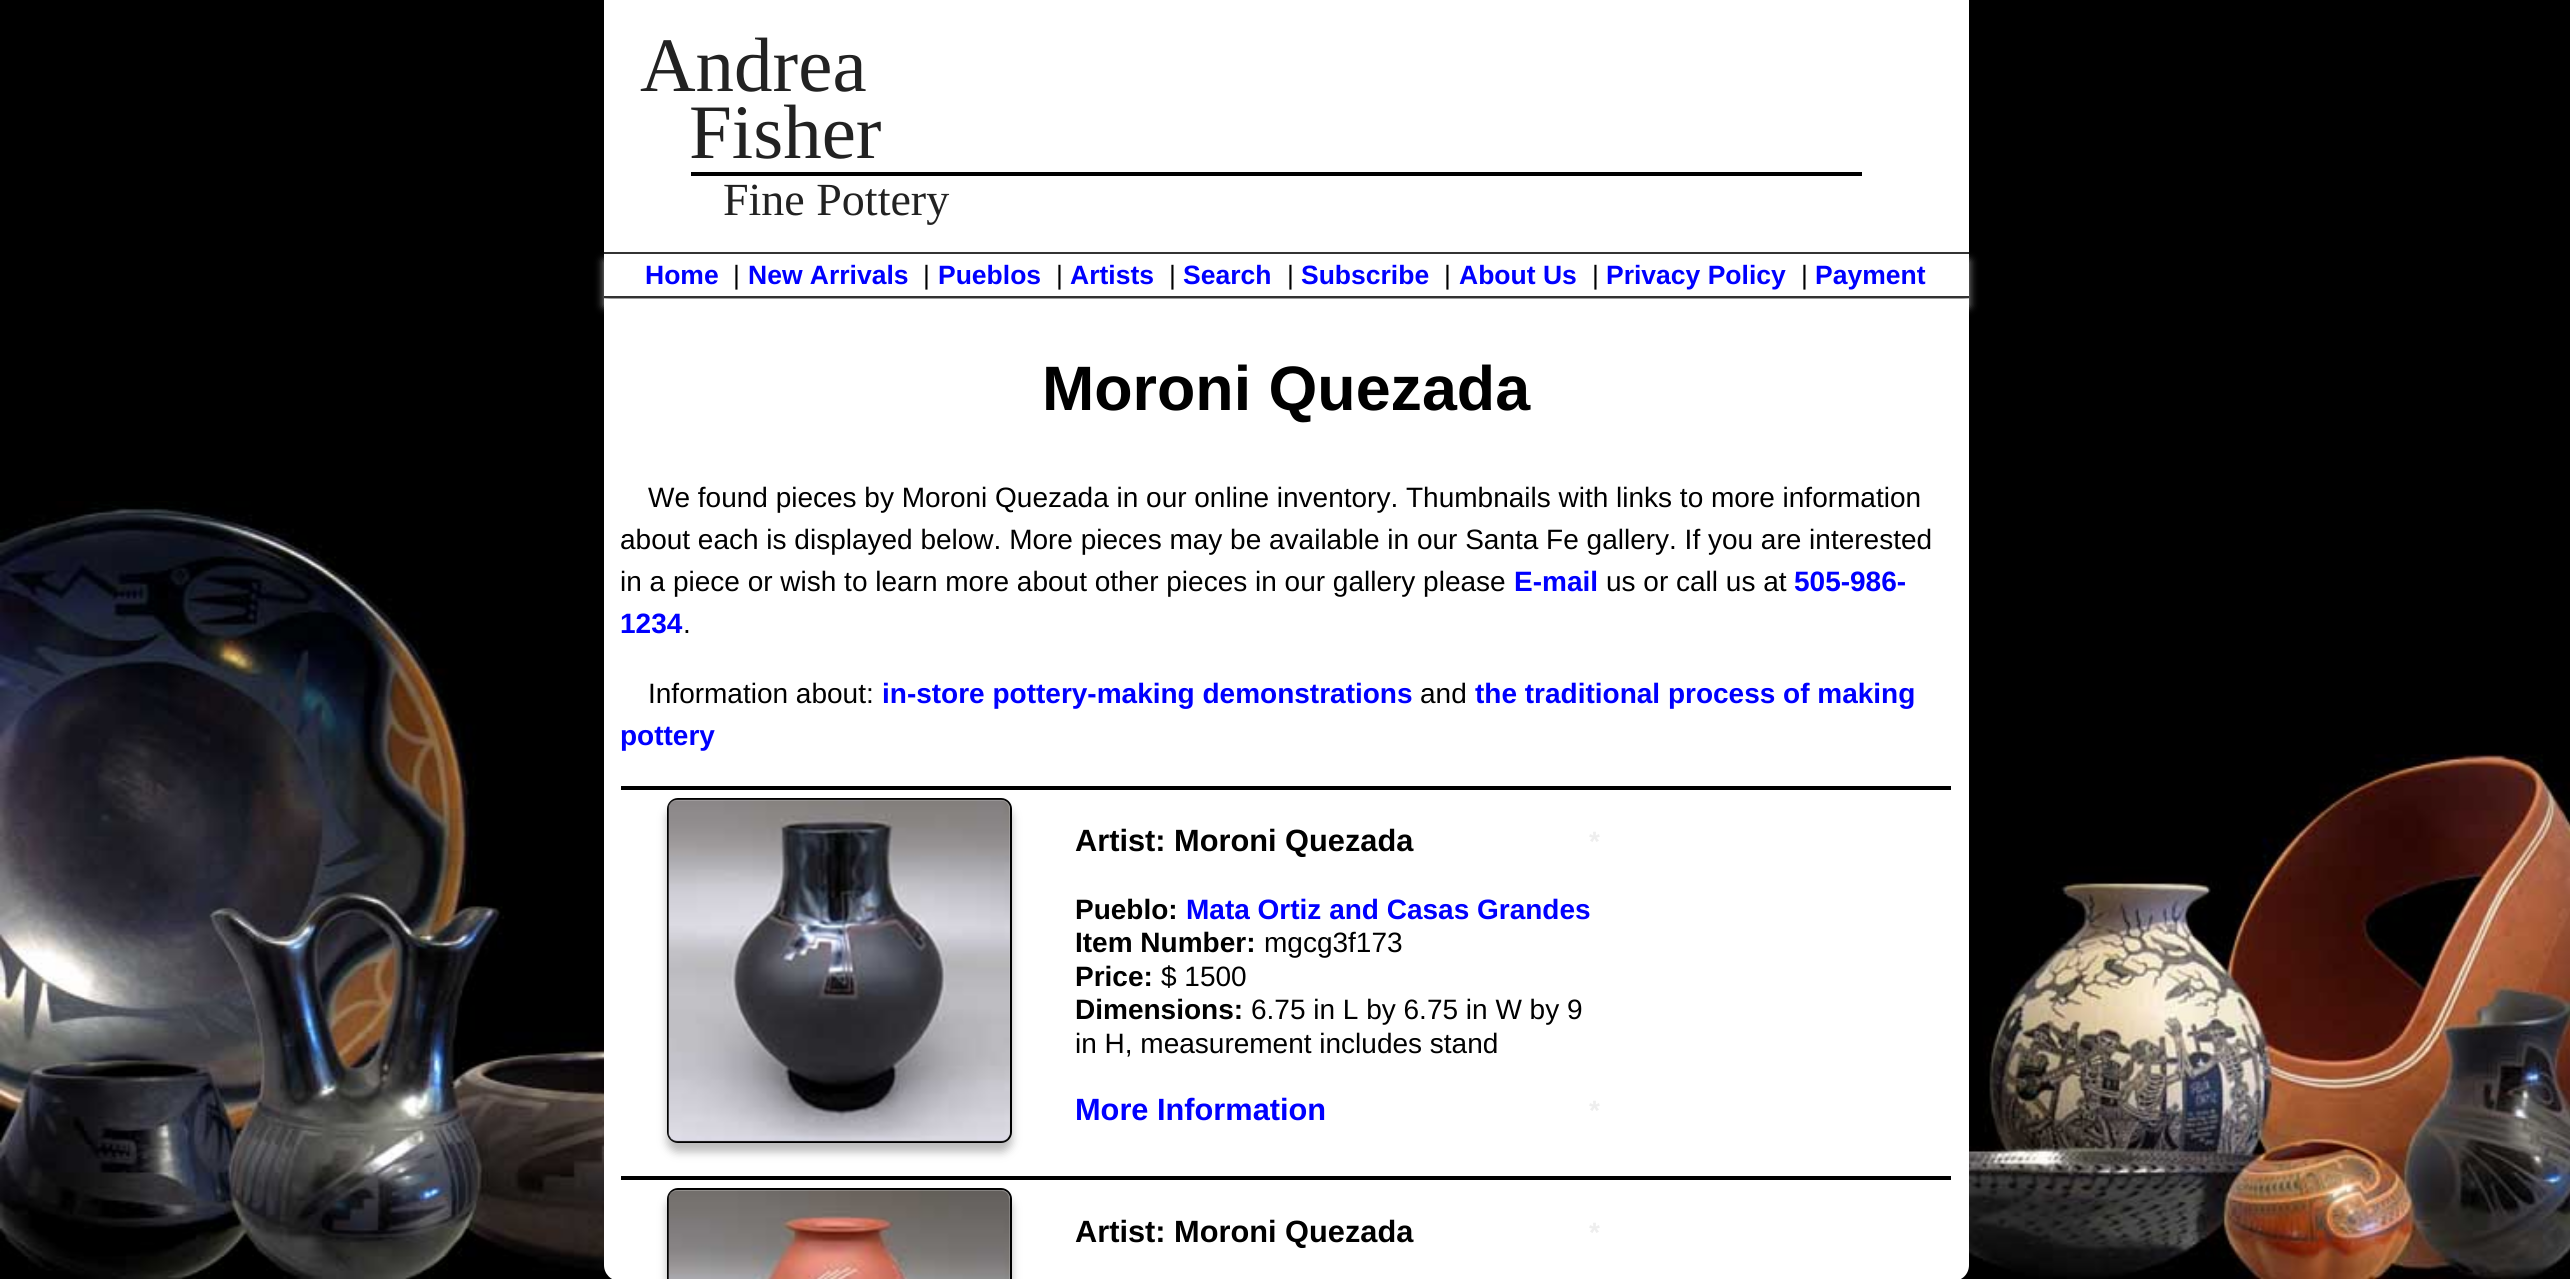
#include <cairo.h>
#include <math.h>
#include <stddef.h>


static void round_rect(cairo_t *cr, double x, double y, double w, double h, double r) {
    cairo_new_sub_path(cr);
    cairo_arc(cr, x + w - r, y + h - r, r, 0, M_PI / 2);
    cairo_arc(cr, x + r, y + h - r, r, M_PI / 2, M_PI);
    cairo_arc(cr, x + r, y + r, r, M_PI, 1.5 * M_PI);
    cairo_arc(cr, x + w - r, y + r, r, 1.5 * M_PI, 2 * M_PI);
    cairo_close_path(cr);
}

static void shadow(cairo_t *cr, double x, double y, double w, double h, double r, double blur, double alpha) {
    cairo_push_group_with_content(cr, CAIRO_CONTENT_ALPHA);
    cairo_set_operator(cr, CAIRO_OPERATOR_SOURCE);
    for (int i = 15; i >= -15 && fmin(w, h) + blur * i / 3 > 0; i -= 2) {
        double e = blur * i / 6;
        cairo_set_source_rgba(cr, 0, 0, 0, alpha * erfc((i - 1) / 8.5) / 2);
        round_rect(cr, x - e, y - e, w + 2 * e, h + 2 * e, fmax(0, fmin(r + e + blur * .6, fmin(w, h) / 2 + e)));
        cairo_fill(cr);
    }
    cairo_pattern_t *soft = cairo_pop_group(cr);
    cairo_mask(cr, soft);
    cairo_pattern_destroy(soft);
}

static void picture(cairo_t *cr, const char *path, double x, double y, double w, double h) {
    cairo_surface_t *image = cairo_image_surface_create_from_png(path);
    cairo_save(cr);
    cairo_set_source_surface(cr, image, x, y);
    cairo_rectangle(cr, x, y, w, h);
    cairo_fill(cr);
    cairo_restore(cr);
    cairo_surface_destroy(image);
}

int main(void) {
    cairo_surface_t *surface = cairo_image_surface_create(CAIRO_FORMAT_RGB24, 2570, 1279);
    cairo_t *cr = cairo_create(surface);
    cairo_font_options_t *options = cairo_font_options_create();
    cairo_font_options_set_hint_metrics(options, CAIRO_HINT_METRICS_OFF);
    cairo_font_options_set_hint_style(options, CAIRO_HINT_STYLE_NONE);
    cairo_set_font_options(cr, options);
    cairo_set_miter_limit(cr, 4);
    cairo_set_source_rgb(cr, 0, 0, 0);
    cairo_paint(cr);
    picture(cr, "img1.png", 0, 501, 2570, 778);
    cairo_set_source_rgb(cr, 1, 1, 1);
    cairo_rectangle(cr, 604, 0, 1365, 299);
    cairo_fill(cr);
    cairo_select_font_face(cr, "Liberation Serif", CAIRO_FONT_SLANT_NORMAL, CAIRO_FONT_WEIGHT_NORMAL);
    cairo_set_font_size(cr, 77);
    cairo_set_source_rgb(cr, 0.133, 0.133, 0.133);
    cairo_move_to(cr, 640, 91);
    cairo_show_text(cr, "Andrea");
    cairo_move_to(cr, 689, 158);
    cairo_show_text(cr, "Fisher");
    cairo_set_source_rgb(cr, 0, 0, 0);
    cairo_rectangle(cr, 691, 172, 1171, 4);
    cairo_fill(cr);
    cairo_set_font_size(cr, 46);
    cairo_set_source_rgb(cr, 0.133, 0.133, 0.133);
    cairo_move_to(cr, 723, 215);
    cairo_show_text(cr, "Fine Pottery");
    cairo_save(cr);
    cairo_set_fill_rule(cr, CAIRO_FILL_RULE_EVEN_ODD);
    cairo_new_path(cr);
    cairo_move_to(cr, 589, 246);
    cairo_line_to(cr, 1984, 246);
    cairo_line_to(cr, 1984, 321);
    cairo_line_to(cr, 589, 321);
    cairo_close_path(cr);
    cairo_move_to(cr, 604, 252);
    cairo_line_to(cr, 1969, 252);
    cairo_line_to(cr, 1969, 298);
    cairo_line_to(cr, 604, 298);
    cairo_close_path(cr);
    cairo_clip(cr);
    cairo_set_source_rgb(cr, 0.6, 0.6, 0.6);
    shadow(cr, 604, 261, 1365, 45, 0, 4.5, 1);
    cairo_restore(cr);
    cairo_set_source_rgb(cr, 0.2, 0.2, 0.2);
    cairo_rectangle(cr, 604, 252, 1365, 2);
    cairo_fill(cr);
    cairo_rectangle(cr, 604, 296, 1365, 2);
    cairo_fill(cr);
    cairo_select_font_face(cr, "Liberation Sans", CAIRO_FONT_SLANT_NORMAL, CAIRO_FONT_WEIGHT_BOLD);
    cairo_set_font_size(cr, 26.5);
    cairo_set_source_rgb(cr, 0, 0, 1);
    cairo_move_to(cr, 645, 284);
    cairo_show_text(cr, "Home");
    cairo_select_font_face(cr, "Liberation Sans", CAIRO_FONT_SLANT_NORMAL, CAIRO_FONT_WEIGHT_NORMAL);
    cairo_set_source_rgb(cr, 0, 0, 0);
    cairo_move_to(cr, 733, 284);
    cairo_show_text(cr, "|");
    cairo_select_font_face(cr, "Liberation Sans", CAIRO_FONT_SLANT_NORMAL, CAIRO_FONT_WEIGHT_BOLD);
    cairo_set_source_rgb(cr, 0, 0, 1);
    cairo_move_to(cr, 748, 284);
    cairo_show_text(cr, "New Arrivals");
    cairo_select_font_face(cr, "Liberation Sans", CAIRO_FONT_SLANT_NORMAL, CAIRO_FONT_WEIGHT_NORMAL);
    cairo_set_source_rgb(cr, 0, 0, 0);
    cairo_move_to(cr, 923, 284);
    cairo_show_text(cr, "|");
    cairo_select_font_face(cr, "Liberation Sans", CAIRO_FONT_SLANT_NORMAL, CAIRO_FONT_WEIGHT_BOLD);
    cairo_set_source_rgb(cr, 0, 0, 1);
    cairo_move_to(cr, 938, 284);
    cairo_show_text(cr, "Pueblos");
    cairo_select_font_face(cr, "Liberation Sans", CAIRO_FONT_SLANT_NORMAL, CAIRO_FONT_WEIGHT_NORMAL);
    cairo_set_source_rgb(cr, 0, 0, 0);
    cairo_move_to(cr, 1056, 284);
    cairo_show_text(cr, "|");
    cairo_select_font_face(cr, "Liberation Sans", CAIRO_FONT_SLANT_NORMAL, CAIRO_FONT_WEIGHT_BOLD);
    cairo_set_source_rgb(cr, 0, 0, 1);
    cairo_move_to(cr, 1070, 284);
    cairo_show_text(cr, "Artists");
    cairo_select_font_face(cr, "Liberation Sans", CAIRO_FONT_SLANT_NORMAL, CAIRO_FONT_WEIGHT_NORMAL);
    cairo_set_source_rgb(cr, 0, 0, 0);
    cairo_move_to(cr, 1169, 284);
    cairo_show_text(cr, "|");
    cairo_select_font_face(cr, "Liberation Sans", CAIRO_FONT_SLANT_NORMAL, CAIRO_FONT_WEIGHT_BOLD);
    cairo_set_source_rgb(cr, 0, 0, 1);
    cairo_move_to(cr, 1183, 284);
    cairo_show_text(cr, "Search");
    cairo_select_font_face(cr, "Liberation Sans", CAIRO_FONT_SLANT_NORMAL, CAIRO_FONT_WEIGHT_NORMAL);
    cairo_set_source_rgb(cr, 0, 0, 0);
    cairo_move_to(cr, 1287, 284);
    cairo_show_text(cr, "|");
    cairo_select_font_face(cr, "Liberation Sans", CAIRO_FONT_SLANT_NORMAL, CAIRO_FONT_WEIGHT_BOLD);
    cairo_set_source_rgb(cr, 0, 0, 1);
    cairo_move_to(cr, 1301, 284);
    cairo_show_text(cr, "Subscribe");
    cairo_select_font_face(cr, "Liberation Sans", CAIRO_FONT_SLANT_NORMAL, CAIRO_FONT_WEIGHT_NORMAL);
    cairo_set_source_rgb(cr, 0, 0, 0);
    cairo_move_to(cr, 1444, 284);
    cairo_show_text(cr, "|");
    cairo_select_font_face(cr, "Liberation Sans", CAIRO_FONT_SLANT_NORMAL, CAIRO_FONT_WEIGHT_BOLD);
    cairo_set_source_rgb(cr, 0, 0, 1);
    cairo_move_to(cr, 1459, 284);
    cairo_show_text(cr, "About Us");
    cairo_select_font_face(cr, "Liberation Sans", CAIRO_FONT_SLANT_NORMAL, CAIRO_FONT_WEIGHT_NORMAL);
    cairo_set_source_rgb(cr, 0, 0, 0);
    cairo_move_to(cr, 1592, 284);
    cairo_show_text(cr, "|");
    cairo_select_font_face(cr, "Liberation Sans", CAIRO_FONT_SLANT_NORMAL, CAIRO_FONT_WEIGHT_BOLD);
    cairo_set_source_rgb(cr, 0, 0, 1);
    cairo_move_to(cr, 1606, 284);
    cairo_show_text(cr, "Privacy Policy");
    cairo_select_font_face(cr, "Liberation Sans", CAIRO_FONT_SLANT_NORMAL, CAIRO_FONT_WEIGHT_NORMAL);
    cairo_set_source_rgb(cr, 0, 0, 0);
    cairo_move_to(cr, 1801, 284);
    cairo_show_text(cr, "|");
    cairo_select_font_face(cr, "Liberation Sans", CAIRO_FONT_SLANT_NORMAL, CAIRO_FONT_WEIGHT_BOLD);
    cairo_set_source_rgb(cr, 0, 0, 1);
    cairo_move_to(cr, 1815, 284);
    cairo_show_text(cr, "Payment");
    cairo_set_source_rgb(cr, 1, 1, 1);
    cairo_new_path(cr);
    cairo_move_to(cr, 604, 299);
    cairo_line_to(cr, 1969, 299);
    cairo_line_to(cr, 1969, 1265);
    cairo_curve_to(cr, 1969, 1274, 1962, 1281, 1953, 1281);
    cairo_line_to(cr, 620, 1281);
    cairo_curve_to(cr, 611, 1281, 604, 1274, 604, 1265);
    cairo_close_path(cr);
    cairo_fill(cr);
    cairo_set_font_size(cr, 62.75);
    cairo_set_source_rgb(cr, 0, 0, 0);
    cairo_move_to(cr, 1042, 410);
    cairo_show_text(cr, "Moroni Quezada");
    cairo_select_font_face(cr, "Liberation Sans", CAIRO_FONT_SLANT_NORMAL, CAIRO_FONT_WEIGHT_NORMAL);
    cairo_set_font_size(cr, 28);
    cairo_move_to(cr, 648, 507);
    cairo_show_text(cr, "We found pieces by Moroni Quezada in our online inventory. Thumbnails with links to more information");
    cairo_move_to(cr, 620, 549);
    cairo_show_text(cr, "about each is displayed below. More pieces may be available in our Santa Fe gallery. If you are interested");
    cairo_move_to(cr, 620, 591);
    cairo_show_text(cr, "in a piece or wish to learn more about other pieces in our gallery please");
    cairo_select_font_face(cr, "Liberation Sans", CAIRO_FONT_SLANT_NORMAL, CAIRO_FONT_WEIGHT_BOLD);
    cairo_set_source_rgb(cr, 0, 0, 1);
    cairo_move_to(cr, 1514, 591);
    cairo_show_text(cr, "E-mail");
    cairo_select_font_face(cr, "Liberation Sans", CAIRO_FONT_SLANT_NORMAL, CAIRO_FONT_WEIGHT_NORMAL);
    cairo_set_source_rgb(cr, 0, 0, 0);
    cairo_move_to(cr, 1606, 591);
    cairo_show_text(cr, "us or call us at");
    cairo_select_font_face(cr, "Liberation Sans", CAIRO_FONT_SLANT_NORMAL, CAIRO_FONT_WEIGHT_BOLD);
    cairo_set_source_rgb(cr, 0, 0, 1);
    cairo_move_to(cr, 1794, 591);
    cairo_show_text(cr, "505-986-");
    cairo_move_to(cr, 620, 633);
    cairo_show_text(cr, "1234");
    cairo_select_font_face(cr, "Liberation Sans", CAIRO_FONT_SLANT_NORMAL, CAIRO_FONT_WEIGHT_NORMAL);
    cairo_set_source_rgb(cr, 0, 0, 0);
    cairo_move_to(cr, 683, 633);
    cairo_show_text(cr, ".");
    cairo_move_to(cr, 648, 703);
    cairo_show_text(cr, "Information about:");
    cairo_select_font_face(cr, "Liberation Sans", CAIRO_FONT_SLANT_NORMAL, CAIRO_FONT_WEIGHT_BOLD);
    cairo_set_source_rgb(cr, 0, 0, 1);
    cairo_move_to(cr, 882, 703);
    cairo_show_text(cr, "in-store pottery-making demonstrations");
    cairo_select_font_face(cr, "Liberation Sans", CAIRO_FONT_SLANT_NORMAL, CAIRO_FONT_WEIGHT_NORMAL);
    cairo_set_source_rgb(cr, 0, 0, 0);
    cairo_move_to(cr, 1420, 703);
    cairo_show_text(cr, "and");
    cairo_select_font_face(cr, "Liberation Sans", CAIRO_FONT_SLANT_NORMAL, CAIRO_FONT_WEIGHT_BOLD);
    cairo_set_source_rgb(cr, 0, 0, 1);
    cairo_move_to(cr, 1475, 703);
    cairo_show_text(cr, "the traditional process of making");
    cairo_move_to(cr, 620, 745);
    cairo_show_text(cr, "pottery");
    cairo_set_source_rgb(cr, 0, 0, 0);
    cairo_rectangle(cr, 621, 786, 1330, 4);
    cairo_fill(cr);
    cairo_set_source_rgb(cr, 0.733, 0.733, 0.733);
    shadow(cr, 667, 807, 345, 345, 11, 4.5, 1);
    round_rect(cr, 668, 799, 343, 343, 10);
    cairo_set_source_rgb(cr, 0, 0, 0);
    cairo_stroke(cr);
    picture(cr, "img2.png", 668, 799, 342, 343);
    cairo_set_font_size(cr, 30.75);
    cairo_move_to(cr, 1075, 851);
    cairo_show_text(cr, "Artist: Moroni Quezada");
    cairo_set_font_size(cr, 28);
    cairo_set_source_rgb(cr, 0.933, 0.933, 0.933);
    cairo_move_to(cr, 1589, 851);
    cairo_show_text(cr, "*");
    cairo_set_source_rgb(cr, 0, 0, 0);
    cairo_move_to(cr, 1075, 919);
    cairo_show_text(cr, "Pueblo:");
    cairo_set_source_rgb(cr, 0, 0, 1);
    cairo_move_to(cr, 1186, 919);
    cairo_show_text(cr, "Mata Ortiz and Casas Grandes");
    cairo_set_source_rgb(cr, 0, 0, 0);
    cairo_move_to(cr, 1075, 952);
    cairo_show_text(cr, "Item Number:");
    cairo_select_font_face(cr, "Liberation Sans", CAIRO_FONT_SLANT_NORMAL, CAIRO_FONT_WEIGHT_NORMAL);
    cairo_move_to(cr, 1264, 952);
    cairo_show_text(cr, "mgcg3f173");
    cairo_select_font_face(cr, "Liberation Sans", CAIRO_FONT_SLANT_NORMAL, CAIRO_FONT_WEIGHT_BOLD);
    cairo_move_to(cr, 1075, 986);
    cairo_show_text(cr, "Price:");
    cairo_select_font_face(cr, "Liberation Sans", CAIRO_FONT_SLANT_NORMAL, CAIRO_FONT_WEIGHT_NORMAL);
    cairo_move_to(cr, 1161, 986);
    cairo_show_text(cr, "$ 1500");
    cairo_select_font_face(cr, "Liberation Sans", CAIRO_FONT_SLANT_NORMAL, CAIRO_FONT_WEIGHT_BOLD);
    cairo_move_to(cr, 1075, 1019);
    cairo_show_text(cr, "Dimensions:");
    cairo_select_font_face(cr, "Liberation Sans", CAIRO_FONT_SLANT_NORMAL, CAIRO_FONT_WEIGHT_NORMAL);
    cairo_move_to(cr, 1251, 1019);
    cairo_show_text(cr, "6.75 in L by 6.75 in W by 9");
    cairo_move_to(cr, 1075, 1053);
    cairo_show_text(cr, "in H, measurement includes stand");
    cairo_select_font_face(cr, "Liberation Sans", CAIRO_FONT_SLANT_NORMAL, CAIRO_FONT_WEIGHT_BOLD);
    cairo_set_font_size(cr, 30.75);
    cairo_set_source_rgb(cr, 0, 0, 1);
    cairo_move_to(cr, 1075, 1120);
    cairo_show_text(cr, "More Information");
    cairo_set_font_size(cr, 28);
    cairo_set_source_rgb(cr, 0.933, 0.933, 0.933);
    cairo_move_to(cr, 1589, 1120);
    cairo_show_text(cr, "*");
    cairo_set_source_rgb(cr, 0, 0, 0);
    cairo_rectangle(cr, 621, 1176, 1330, 4);
    cairo_fill(cr);
    cairo_set_source_rgb(cr, 0.733, 0.733, 0.733);
    shadow(cr, 667, 1197, 345, 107, 11, 4.5, 1);
    cairo_set_source_rgb(cr, 0, 0, 0);
    cairo_new_path(cr);
    cairo_move_to(cr, 678, 1188);
    cairo_curve_to(cr, 672, 1188, 667, 1193, 667, 1199);
    cairo_line_to(cr, 667, 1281);
    cairo_line_to(cr, 669, 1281);
    cairo_line_to(cr, 669, 1199);
    cairo_curve_to(cr, 669, 1194, 673, 1190, 678, 1190);
    cairo_line_to(cr, 1001, 1190);
    cairo_curve_to(cr, 1006, 1190, 1010, 1194, 1010, 1199);
    cairo_line_to(cr, 1010, 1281);
    cairo_line_to(cr, 1012, 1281);
    cairo_line_to(cr, 1012, 1199);
    cairo_curve_to(cr, 1012, 1193, 1007, 1188, 1001, 1188);
    cairo_close_path(cr);
    cairo_fill(cr);
    picture(cr, "img3.png", 668, 1189, 342, 90);
    cairo_set_font_size(cr, 30.75);
    cairo_move_to(cr, 1075, 1242);
    cairo_show_text(cr, "Artist: Moroni Quezada");
    cairo_set_font_size(cr, 28);
    cairo_set_source_rgb(cr, 0.933, 0.933, 0.933);
    cairo_move_to(cr, 1589, 1242);
    cairo_show_text(cr, "*");
    cairo_surface_write_to_png(surface, "page.png");
    cairo_font_options_destroy(options);
    cairo_destroy(cr);
    cairo_surface_destroy(surface);
    return 0;
}
